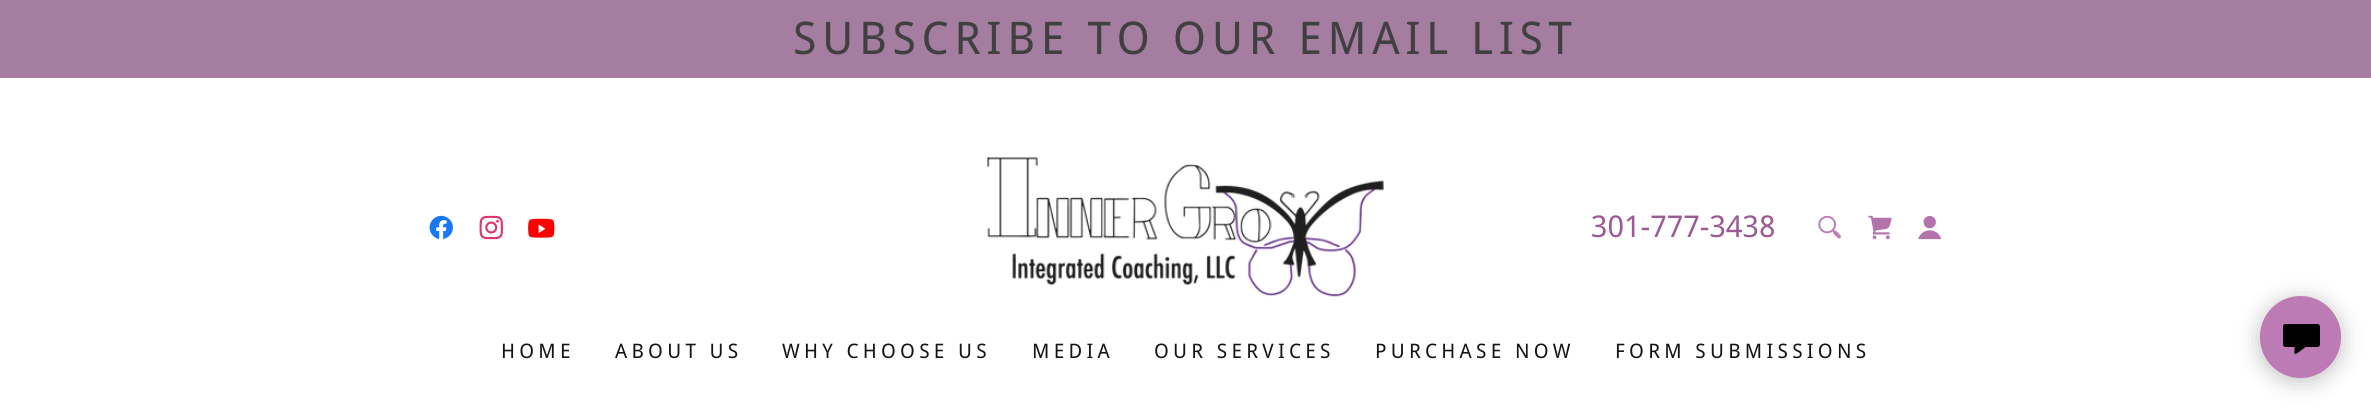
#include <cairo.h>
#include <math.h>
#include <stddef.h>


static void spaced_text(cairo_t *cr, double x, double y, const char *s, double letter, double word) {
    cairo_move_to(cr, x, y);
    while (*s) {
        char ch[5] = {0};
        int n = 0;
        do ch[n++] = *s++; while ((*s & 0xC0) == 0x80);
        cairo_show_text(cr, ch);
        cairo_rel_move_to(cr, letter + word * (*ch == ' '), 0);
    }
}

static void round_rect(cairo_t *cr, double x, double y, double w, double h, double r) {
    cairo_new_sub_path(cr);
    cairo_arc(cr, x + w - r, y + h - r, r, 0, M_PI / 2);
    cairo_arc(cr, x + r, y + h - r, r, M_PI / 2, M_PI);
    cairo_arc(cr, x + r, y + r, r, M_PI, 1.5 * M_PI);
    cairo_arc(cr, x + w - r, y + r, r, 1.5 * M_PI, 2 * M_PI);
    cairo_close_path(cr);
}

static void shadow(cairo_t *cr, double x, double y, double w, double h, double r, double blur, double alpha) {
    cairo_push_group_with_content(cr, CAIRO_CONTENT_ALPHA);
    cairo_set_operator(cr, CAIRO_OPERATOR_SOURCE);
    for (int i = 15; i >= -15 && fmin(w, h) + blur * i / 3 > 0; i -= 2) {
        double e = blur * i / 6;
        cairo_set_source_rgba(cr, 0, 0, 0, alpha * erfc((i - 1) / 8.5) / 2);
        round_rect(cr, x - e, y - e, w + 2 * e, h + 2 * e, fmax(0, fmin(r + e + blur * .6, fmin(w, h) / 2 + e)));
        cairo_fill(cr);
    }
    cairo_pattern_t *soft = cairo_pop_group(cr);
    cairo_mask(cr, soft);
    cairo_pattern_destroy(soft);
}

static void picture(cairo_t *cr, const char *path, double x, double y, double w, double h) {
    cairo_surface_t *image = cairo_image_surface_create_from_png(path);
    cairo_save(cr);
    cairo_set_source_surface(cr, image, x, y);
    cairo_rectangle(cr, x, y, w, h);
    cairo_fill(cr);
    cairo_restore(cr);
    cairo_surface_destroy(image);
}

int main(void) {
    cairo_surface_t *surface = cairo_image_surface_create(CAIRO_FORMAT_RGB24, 2371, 407);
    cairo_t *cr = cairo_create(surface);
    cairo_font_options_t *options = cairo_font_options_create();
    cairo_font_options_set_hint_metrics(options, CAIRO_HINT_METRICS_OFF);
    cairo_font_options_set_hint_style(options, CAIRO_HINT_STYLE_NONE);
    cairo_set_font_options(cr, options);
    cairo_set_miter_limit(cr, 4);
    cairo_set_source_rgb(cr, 1, 1, 1);
    cairo_paint(cr);
    cairo_set_source_rgb(cr, 0.643, 0.49, 0.627);
    cairo_rectangle(cr, 0, 0, 2371, 78);
    cairo_fill(cr);
    cairo_select_font_face(cr, "Droid Sans", CAIRO_FONT_SLANT_NORMAL, CAIRO_FONT_WEIGHT_NORMAL);
    cairo_set_font_size(cr, 45);
    cairo_set_source_rgb(cr, 0.251, 0.251, 0.251);
    spaced_text(cr, 793, 54, "SUBSCRIBE TO OUR EMAIL LIST", 5.6, 0);
    picture(cr, "img1.png", 429, 215, 24, 24);
    picture(cr, "img2.png", 479, 215, 24, 25);
    picture(cr, "img3.png", 528, 218, 27, 20);
    picture(cr, "img4.png", 987, 157, 397, 140);
    cairo_set_font_size(cr, 30);
    cairo_set_source_rgb(cr, 0.612, 0.353, 0.584);
    cairo_move_to(cr, 1591, 237);
    cairo_show_text(cr, "301-777-3438");
    picture(cr, "img5.png", 1818, 215, 23, 24);
    picture(cr, "img6.png", 1868, 215, 24, 25);
    picture(cr, "img7.png", 1918, 215, 24, 25);
    cairo_set_font_size(cr, 20);
    cairo_set_source_rgb(cr, 0.082, 0.082, 0.082);
    spaced_text(cr, 501, 358, "HOME", 4.25, 0);
    spaced_text(cr, 615, 358, "ABOUT US", 4.25, 0);
    spaced_text(cr, 782, 358, "WHY CHOOSE US", 4.25, 0);
    spaced_text(cr, 1032, 358, "MEDIA", 4.25, 0);
    spaced_text(cr, 1154, 358, "OUR SERVICES", 4.25, 0);
    spaced_text(cr, 1375, 358, "PURCHASE NOW", 4.25, 0);
    spaced_text(cr, 1615, 358, "FORM SUBMISSIONS", 4.25, 0);
    cairo_set_source_rgb(cr, 0, 0, 0);
    shadow(cr, 2260, 300, 81, 81, 40.5, 11, 0.25);
    cairo_set_source_rgb(cr, 0.737, 0.482, 0.71);
    round_rect(cr, 2260, 296, 81, 82, 40.5);
    cairo_fill(cr);
    picture(cr, "img8.png", 2283, 324, 37, 30);
    cairo_surface_write_to_png(surface, "page.png");
    cairo_font_options_destroy(options);
    cairo_destroy(cr);
    cairo_surface_destroy(surface);
    return 0;
}
